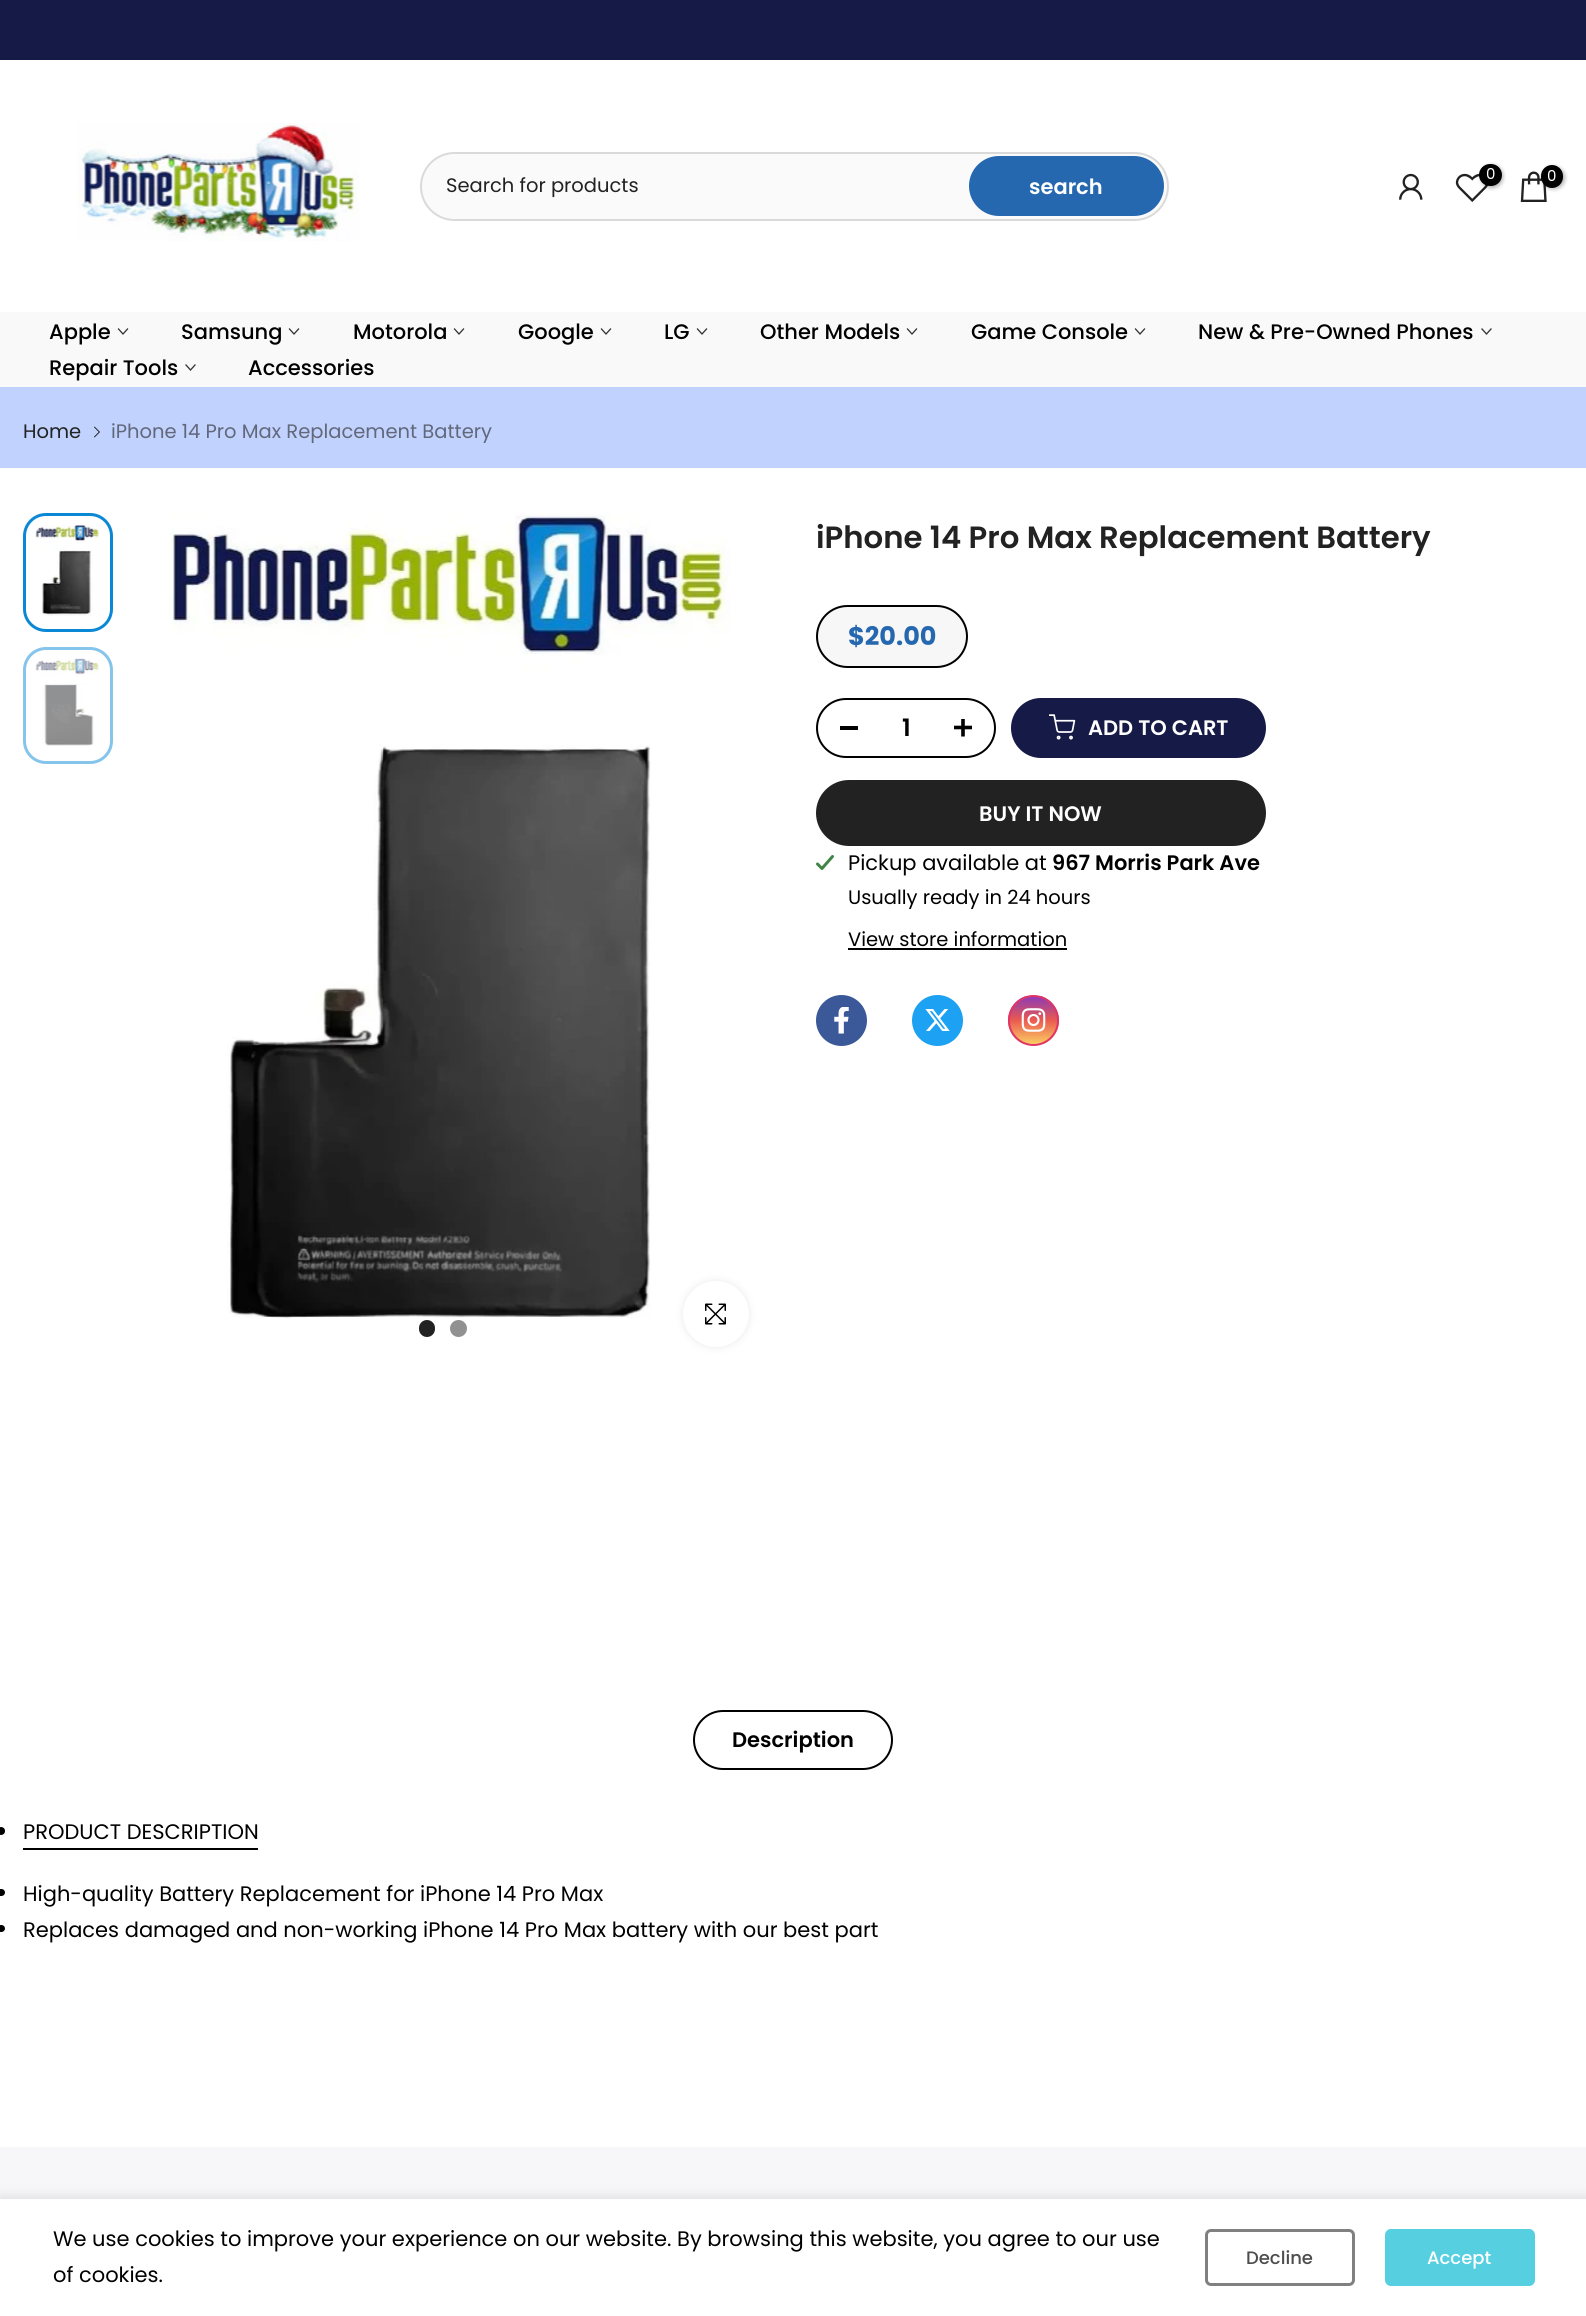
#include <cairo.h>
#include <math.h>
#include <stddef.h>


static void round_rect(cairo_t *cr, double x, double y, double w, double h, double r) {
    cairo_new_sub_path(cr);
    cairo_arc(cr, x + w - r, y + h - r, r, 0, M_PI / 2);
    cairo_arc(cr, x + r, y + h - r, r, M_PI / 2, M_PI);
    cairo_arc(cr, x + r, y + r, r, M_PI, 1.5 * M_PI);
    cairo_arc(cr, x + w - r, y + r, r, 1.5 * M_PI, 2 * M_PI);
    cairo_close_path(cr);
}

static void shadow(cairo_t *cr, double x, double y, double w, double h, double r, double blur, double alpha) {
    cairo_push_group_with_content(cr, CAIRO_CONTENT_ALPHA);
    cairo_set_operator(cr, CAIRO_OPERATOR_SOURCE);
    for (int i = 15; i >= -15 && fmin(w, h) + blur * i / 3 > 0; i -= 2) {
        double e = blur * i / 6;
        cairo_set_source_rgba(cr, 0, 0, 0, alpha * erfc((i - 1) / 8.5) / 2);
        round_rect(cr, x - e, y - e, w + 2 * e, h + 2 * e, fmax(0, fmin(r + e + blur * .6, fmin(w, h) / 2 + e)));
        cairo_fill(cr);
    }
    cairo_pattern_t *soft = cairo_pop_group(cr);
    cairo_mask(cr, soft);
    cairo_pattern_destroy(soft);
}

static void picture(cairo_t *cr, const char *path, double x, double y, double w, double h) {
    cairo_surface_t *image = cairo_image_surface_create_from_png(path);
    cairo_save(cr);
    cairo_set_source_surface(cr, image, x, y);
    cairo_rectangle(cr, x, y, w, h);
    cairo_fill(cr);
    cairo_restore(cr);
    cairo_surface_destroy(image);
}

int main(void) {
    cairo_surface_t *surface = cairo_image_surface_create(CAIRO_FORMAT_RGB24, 1586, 2316);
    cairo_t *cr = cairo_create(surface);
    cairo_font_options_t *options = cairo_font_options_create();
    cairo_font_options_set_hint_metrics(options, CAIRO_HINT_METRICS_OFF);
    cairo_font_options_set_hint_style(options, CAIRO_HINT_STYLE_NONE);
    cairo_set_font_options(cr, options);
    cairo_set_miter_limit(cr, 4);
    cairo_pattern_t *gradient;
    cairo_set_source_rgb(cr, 1, 1, 1);
    cairo_paint(cr);
    cairo_set_source_rgb(cr, 0.086, 0.102, 0.278);
    cairo_rectangle(cr, 0, 0, 1586, 60);
    cairo_fill(cr);
    picture(cr, "img1.png", 77, 123, 282, 118);
    picture(cr, "img2.png", 1399, 173, 24, 27);
    picture(cr, "img3.png", 1455, 173, 34, 29);
    cairo_set_source_rgb(cr, 0, 0, 0);
    shadow(cr, 1481, 165, 22, 23, 11, 2, 0.3);
    cairo_set_source_rgb(cr, 0, 0, 0);
    round_rect(cr, 1479, 164, 23, 22, 11);
    cairo_fill(cr);
    cairo_select_font_face(cr, "Poppins", CAIRO_FONT_SLANT_NORMAL, CAIRO_FONT_WEIGHT_NORMAL);
    cairo_set_font_size(cr, 15);
    cairo_set_source_rgb(cr, 1, 1, 1);
    cairo_move_to(cr, 1486, 179);
    cairo_show_text(cr, "0");
    picture(cr, "img4.png", 1520, 171, 27, 31);
    cairo_set_source_rgb(cr, 0, 0, 0);
    shadow(cr, 1542, 167, 23, 22, 11, 2, 0.3);
    cairo_set_source_rgb(cr, 0, 0, 0);
    round_rect(cr, 1541, 165, 22, 23, 11);
    cairo_fill(cr);
    cairo_set_source_rgb(cr, 1, 1, 1);
    cairo_move_to(cr, 1547, 181);
    cairo_show_text(cr, "0");
    cairo_set_source_rgb(cr, 0.98, 0.98, 0.98);
    round_rect(cr, 421, 153, 747, 67, 33.5);
    cairo_fill_preserve(cr);
    cairo_set_source_rgb(cr, 0.855, 0.855, 0.855);
    cairo_stroke(cr);
    cairo_set_font_size(cr, 19.5);
    cairo_set_source_rgb(cr, 0.133, 0.133, 0.133);
    cairo_move_to(cr, 446, 192);
    cairo_show_text(cr, "Search for products");
    cairo_set_source_rgb(cr, 0.145, 0.408, 0.686);
    round_rect(cr, 969, 156, 195, 60, 30);
    cairo_fill(cr);
    cairo_select_font_face(cr, "Poppins SemiBold", CAIRO_FONT_SLANT_NORMAL, CAIRO_FONT_WEIGHT_NORMAL);
    cairo_set_font_size(cr, 21);
    cairo_set_source_rgb(cr, 1, 1, 1);
    cairo_move_to(cr, 1029, 194);
    cairo_show_text(cr, "search");
    cairo_set_source_rgb(cr, 0.973, 0.973, 0.973);
    cairo_rectangle(cr, 0, 312, 1586, 75);
    cairo_fill(cr);
    cairo_select_font_face(cr, "Poppins Medium", CAIRO_FONT_SLANT_NORMAL, CAIRO_FONT_WEIGHT_NORMAL);
    cairo_set_source_rgb(cr, 0, 0, 0);
    cairo_move_to(cr, 49, 339);
    cairo_show_text(cr, "Apple");
    cairo_new_path(cr);
    cairo_move_to(cr, 127.5, 329);
    cairo_line_to(cr, 123, 334);
    cairo_line_to(cr, 118.5, 329);
    cairo_set_source_rgb(cr, 0.196, 0.196, 0.196);
    cairo_set_line_width(cr, 1.3);
    cairo_set_line_cap(cr, CAIRO_LINE_CAP_SQUARE);
    cairo_stroke(cr);
    cairo_set_source_rgb(cr, 0, 0, 0);
    cairo_move_to(cr, 181, 339);
    cairo_show_text(cr, "Samsung");
    cairo_new_path(cr);
    cairo_move_to(cr, 298.5, 329);
    cairo_line_to(cr, 294, 334);
    cairo_line_to(cr, 289.5, 329);
    cairo_set_source_rgb(cr, 0.196, 0.196, 0.196);
    cairo_stroke(cr);
    cairo_set_source_rgb(cr, 0, 0, 0);
    cairo_move_to(cr, 353, 339);
    cairo_show_text(cr, "Motorola");
    cairo_new_path(cr);
    cairo_move_to(cr, 463.5, 329);
    cairo_line_to(cr, 459, 334);
    cairo_line_to(cr, 454.5, 329);
    cairo_set_source_rgb(cr, 0.196, 0.196, 0.196);
    cairo_stroke(cr);
    cairo_set_source_rgb(cr, 0, 0, 0);
    cairo_move_to(cr, 518, 339);
    cairo_show_text(cr, "Google");
    cairo_new_path(cr);
    cairo_move_to(cr, 610.5, 329);
    cairo_line_to(cr, 606, 334);
    cairo_line_to(cr, 601.5, 329);
    cairo_set_source_rgb(cr, 0.196, 0.196, 0.196);
    cairo_stroke(cr);
    cairo_set_source_rgb(cr, 0, 0, 0);
    cairo_move_to(cr, 664, 339);
    cairo_show_text(cr, "LG");
    cairo_new_path(cr);
    cairo_move_to(cr, 706.5, 329);
    cairo_line_to(cr, 702, 334);
    cairo_line_to(cr, 697.5, 329);
    cairo_set_source_rgb(cr, 0.196, 0.196, 0.196);
    cairo_stroke(cr);
    cairo_set_source_rgb(cr, 0, 0, 0);
    cairo_move_to(cr, 760, 339);
    cairo_show_text(cr, "Other Models");
    cairo_new_path(cr);
    cairo_move_to(cr, 916.5, 329);
    cairo_line_to(cr, 912, 334);
    cairo_line_to(cr, 907.5, 329);
    cairo_set_source_rgb(cr, 0.196, 0.196, 0.196);
    cairo_stroke(cr);
    cairo_set_source_rgb(cr, 0, 0, 0);
    cairo_move_to(cr, 971, 339);
    cairo_show_text(cr, "Game Console");
    cairo_new_path(cr);
    cairo_move_to(cr, 1144.5, 329);
    cairo_line_to(cr, 1140, 334);
    cairo_line_to(cr, 1135.5, 329);
    cairo_set_source_rgb(cr, 0.196, 0.196, 0.196);
    cairo_stroke(cr);
    cairo_set_source_rgb(cr, 0, 0, 0);
    cairo_move_to(cr, 1198, 339);
    cairo_show_text(cr, "New & Pre-Owned Phones");
    cairo_new_path(cr);
    cairo_move_to(cr, 1491, 329);
    cairo_line_to(cr, 1486.5, 334);
    cairo_line_to(cr, 1482, 329);
    cairo_set_source_rgb(cr, 0.196, 0.196, 0.196);
    cairo_stroke(cr);
    cairo_set_source_rgb(cr, 0, 0, 0);
    cairo_move_to(cr, 49, 375);
    cairo_show_text(cr, "Repair Tools");
    cairo_new_path(cr);
    cairo_move_to(cr, 195, 365);
    cairo_line_to(cr, 190.5, 370);
    cairo_line_to(cr, 186, 365);
    cairo_set_source_rgb(cr, 0.196, 0.196, 0.196);
    cairo_stroke(cr);
    cairo_set_source_rgb(cr, 0, 0, 0);
    cairo_move_to(cr, 248, 375);
    cairo_show_text(cr, "Accessories");
    cairo_set_source_rgb(cr, 0.757, 0.824, 1);
    cairo_rectangle(cr, 0, 387, 1586, 81);
    cairo_fill(cr);
    cairo_select_font_face(cr, "Poppins", CAIRO_FONT_SLANT_NORMAL, CAIRO_FONT_WEIGHT_NORMAL);
    cairo_set_font_size(cr, 19.5);
    cairo_set_source_rgb(cr, 0.133, 0.133, 0.133);
    cairo_move_to(cr, 23, 438);
    cairo_show_text(cr, "Home");
    picture(cr, "img5.png", 94, 426, 6, 12);
    cairo_set_source_rgb(cr, 0.384, 0.408, 0.478);
    cairo_move_to(cr, 111, 438);
    cairo_show_text(cr, "iPhone 14 Pro Max Replacement Battery");
    round_rect(cr, 24.5, 514.5, 87, 116, 21.5);
    cairo_set_source_rgb(cr, 0.043, 0.533, 0.835);
    cairo_set_line_width(cr, 3);
    cairo_set_line_cap(cr, CAIRO_LINE_CAP_BUTT);
    cairo_stroke(cr);
    picture(cr, "img6.png", 35, 525, 65, 91);
    round_rect(cr, 24.5, 648.5, 87, 114, 21.5);
    cairo_set_source_rgb(cr, 0.522, 0.769, 0.918);
    cairo_stroke(cr);
    picture(cr, "img7.png", 35, 658, 64, 88);
    picture(cr, "img8.png", 168, 513, 563, 805);
    cairo_set_source_rgb(cr, 0.133, 0.133, 0.133);
    round_rect(cr, 419, 1320, 16, 17, 8);
    cairo_fill(cr);
    cairo_set_source_rgb(cr, 0.569, 0.569, 0.569);
    cairo_arc(cr, 458.5, 1328.5, 8.5, 0, 2 * M_PI);
    cairo_fill(cr);
    cairo_set_source_rgb(cr, 0, 0, 0);
    shadow(cr, 683, 1281, 66, 66, 33, 4, 0.09);
    cairo_set_source_rgb(cr, 1, 1, 1);
    cairo_arc(cr, 716, 1314, 33, 0, 2 * M_PI);
    cairo_fill(cr);
    picture(cr, "img9.png", 705, 1303, 21, 22);
    cairo_select_font_face(cr, "Poppins SemiBold", CAIRO_FONT_SLANT_NORMAL, CAIRO_FONT_WEIGHT_NORMAL);
    cairo_set_font_size(cr, 30.75);
    cairo_set_source_rgb(cr, 0.133, 0.133, 0.133);
    cairo_move_to(cr, 816, 548);
    cairo_show_text(cr, "iPhone 14 Pro Max Replacement Battery");
    cairo_set_source_rgb(cr, 0.965, 0.965, 0.965);
    round_rect(cr, 817, 606, 150, 61, 30.5);
    cairo_fill_preserve(cr);
    cairo_set_source_rgb(cr, 0, 0, 0);
    cairo_set_line_width(cr, 2);
    cairo_stroke(cr);
    cairo_select_font_face(cr, "Poppins", CAIRO_FONT_SLANT_NORMAL, CAIRO_FONT_WEIGHT_BOLD);
    cairo_set_font_size(cr, 25.5);
    cairo_set_source_rgb(cr, 0.145, 0.408, 0.686);
    cairo_move_to(cr, 848, 645);
    cairo_show_text(cr, "$20.00");
    round_rect(cr, 817, 699, 178, 58, 29);
    cairo_set_source_rgb(cr, 0, 0, 0);
    cairo_stroke(cr);
    cairo_rectangle(cr, 840, 726, 18, 4);
    cairo_fill(cr);
    cairo_select_font_face(cr, "Poppins SemiBold", CAIRO_FONT_SLANT_NORMAL, CAIRO_FONT_WEIGHT_NORMAL);
    cairo_set_font_size(cr, 24);
    cairo_move_to(cr, 902, 736);
    cairo_show_text(cr, "1");
    picture(cr, "img10.png", 954, 719, 18, 18);
    cairo_set_source_rgb(cr, 0.086, 0.102, 0.278);
    round_rect(cr, 1011, 698, 255, 60, 30);
    cairo_fill(cr);
    picture(cr, "img11.png", 1049, 714, 27, 26);
    cairo_set_font_size(cr, 21);
    cairo_set_source_rgb(cr, 1, 1, 1);
    cairo_move_to(cr, 1088, 735);
    cairo_show_text(cr, "ADD TO CART");
    cairo_set_source_rgb(cr, 0.133, 0.133, 0.133);
    round_rect(cr, 816, 780, 450, 66, 33);
    cairo_fill(cr);
    cairo_set_source_rgb(cr, 1, 1, 1);
    cairo_move_to(cr, 979, 821);
    cairo_show_text(cr, "BUY IT NOW");
    picture(cr, "img12.png", 816, 855, 18, 15);
    cairo_select_font_face(cr, "Poppins", CAIRO_FONT_SLANT_NORMAL, CAIRO_FONT_WEIGHT_NORMAL);
    cairo_set_source_rgb(cr, 0, 0, 0);
    cairo_move_to(cr, 848, 870);
    cairo_show_text(cr, "Pickup available at");
    cairo_select_font_face(cr, "Poppins SemiBold", CAIRO_FONT_SLANT_NORMAL, CAIRO_FONT_WEIGHT_NORMAL);
    cairo_move_to(cr, 1052, 870);
    cairo_show_text(cr, "967 Morris Park Ave");
    cairo_select_font_face(cr, "Poppins", CAIRO_FONT_SLANT_NORMAL, CAIRO_FONT_WEIGHT_NORMAL);
    cairo_set_font_size(cr, 19.5);
    cairo_move_to(cr, 848, 904);
    cairo_show_text(cr, "Usually ready in 24 hours");
    cairo_move_to(cr, 848, 946);
    cairo_show_text(cr, "View store information");
    cairo_rectangle(cr, 848, 948, 219, 2);
    cairo_fill(cr);
    cairo_set_source_rgb(cr, 0.231, 0.349, 0.596);
    cairo_arc(cr, 841.5, 1020.5, 24.5, 0, 2 * M_PI);
    cairo_fill_preserve(cr);
    cairo_stroke(cr);
    picture(cr, "img13.png", 834, 1007, 15, 27);
    cairo_set_source_rgb(cr, 0.114, 0.631, 0.949);
    cairo_arc(cr, 937.5, 1020.5, 24.5, 0, 2 * M_PI);
    cairo_fill_preserve(cr);
    cairo_stroke(cr);
    picture(cr, "img14.png", 925, 1009, 25, 22);
    cairo_save(cr);
    round_rect(cr, 1008, 995, 51, 51, 25.5);
    cairo_clip(cr);
    gradient = cairo_pattern_create_linear(1034, 996, 1034, 1044);
    cairo_pattern_add_color_stop_rgba(gradient, 0, 0.541, 0.227, 0.725, 1);
    cairo_pattern_add_color_stop_rgba(gradient, 0.5, 0.914, 0.349, 0.314, 1);
    cairo_pattern_add_color_stop_rgba(gradient, 1, 0.988, 0.8, 0.388, 1);
    cairo_set_source(cr, gradient);
    cairo_pattern_destroy(gradient);
    cairo_rectangle(cr, 1008, 996, 51, 48);
    cairo_fill(cr);
    cairo_restore(cr);
    cairo_arc(cr, 1033.5, 1020.5, 24.5, 0, 2 * M_PI);
    cairo_set_source_rgb(cr, 0.878, 0.208, 0.4);
    cairo_stroke(cr);
    picture(cr, "img15.png", 1021, 1008, 25, 24);
    round_rect(cr, 694, 1711, 198, 58, 29);
    cairo_set_source_rgb(cr, 0, 0, 0);
    cairo_stroke(cr);
    cairo_select_font_face(cr, "Poppins SemiBold", CAIRO_FONT_SLANT_NORMAL, CAIRO_FONT_WEIGHT_NORMAL);
    cairo_set_font_size(cr, 21);
    cairo_move_to(cr, 732, 1747);
    cairo_show_text(cr, "Description");
    cairo_new_path(cr);
    cairo_arc(cr, 1, 1831, 4, 0, 2 * M_PI);
    cairo_fill(cr);
    cairo_select_font_face(cr, "Poppins", CAIRO_FONT_SLANT_NORMAL, CAIRO_FONT_WEIGHT_NORMAL);
    cairo_move_to(cr, 23, 1839);
    cairo_show_text(cr, "PRODUCT DESCRIPTION");
    cairo_rectangle(cr, 23, 1848, 235, 2);
    cairo_fill(cr);
    round_rect(cr, -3, 1889, 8, 7, 3.5);
    cairo_fill(cr);
    cairo_move_to(cr, 23, 1901);
    cairo_show_text(cr, "High-quality Battery Replacement for iPhone 14 Pro Max");
    round_rect(cr, -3, 1925, 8, 7, 3.5);
    cairo_fill(cr);
    cairo_move_to(cr, 23, 1937);
    cairo_show_text(cr, "Replaces damaged and non-working iPhone 14 Pro Max battery with our best part");
    cairo_set_source_rgb(cr, 0.965, 0.965, 0.973);
    cairo_rectangle(cr, 0, 2147, 1586, 52);
    cairo_fill(cr);
    cairo_set_source_rgb(cr, 0, 0, 0);
    shadow(cr, 0, 2199, 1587, 117, 0, 7, 0.14);
    cairo_set_source_rgb(cr, 1, 1, 1);
    cairo_rectangle(cr, 0, 2199, 1586, 117);
    cairo_fill(cr);
    cairo_set_source_rgb(cr, 0, 0, 0);
    cairo_move_to(cr, 53, 2246);
    cairo_show_text(cr, "We use cookies to improve your experience on our website. By browsing this website, you agree to our use");
    cairo_move_to(cr, 53, 2282);
    cairo_show_text(cr, "of cookies.");
    round_rect(cr, 1206.5, 2230.5, 147, 54, 4.5);
    cairo_set_source_rgb(cr, 0.502, 0.502, 0.502);
    cairo_set_line_width(cr, 3);
    cairo_stroke(cr);
    cairo_select_font_face(cr, "Poppins Medium", CAIRO_FONT_SLANT_NORMAL, CAIRO_FONT_WEIGHT_NORMAL);
    cairo_set_font_size(cr, 18);
    cairo_set_source_rgb(cr, 0.302, 0.302, 0.302);
    cairo_move_to(cr, 1246, 2264);
    cairo_show_text(cr, "Decline");
    cairo_set_source_rgb(cr, 0.337, 0.812, 0.882);
    round_rect(cr, 1385, 2229, 150, 57, 6);
    cairo_fill(cr);
    cairo_set_source_rgb(cr, 1, 1, 1);
    cairo_move_to(cr, 1427, 2264);
    cairo_show_text(cr, "Accept");
    cairo_surface_write_to_png(surface, "page.png");
    cairo_font_options_destroy(options);
    cairo_destroy(cr);
    cairo_surface_destroy(surface);
    return 0;
}
